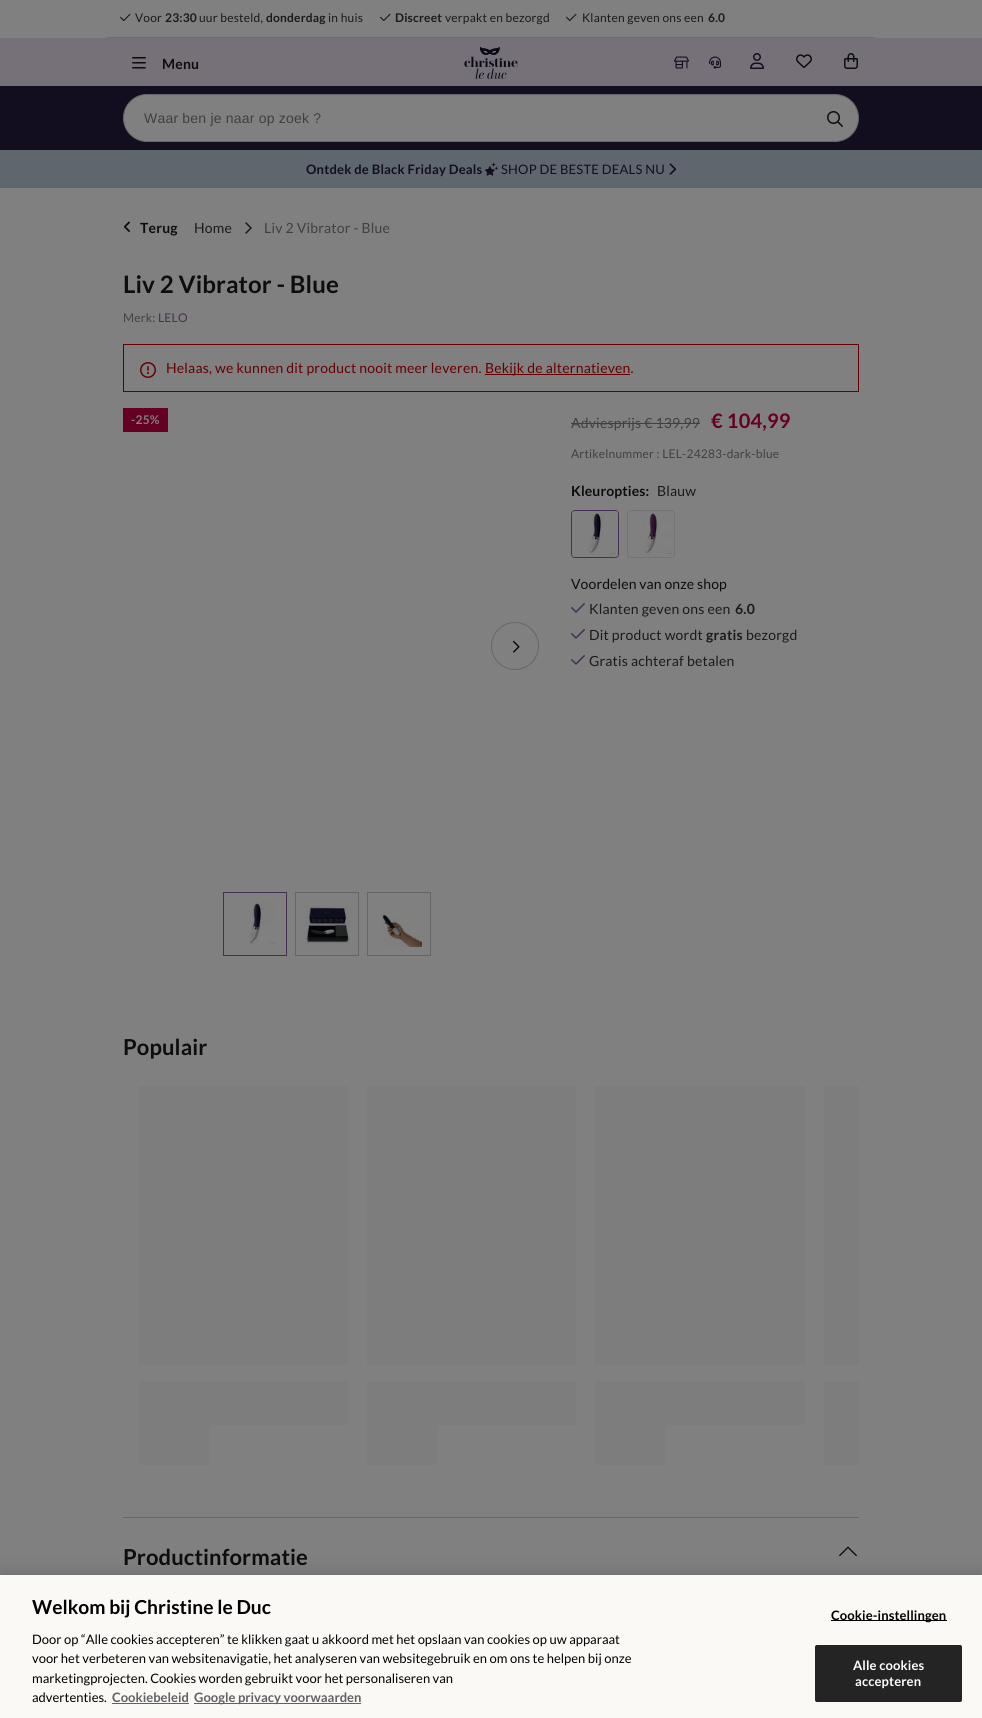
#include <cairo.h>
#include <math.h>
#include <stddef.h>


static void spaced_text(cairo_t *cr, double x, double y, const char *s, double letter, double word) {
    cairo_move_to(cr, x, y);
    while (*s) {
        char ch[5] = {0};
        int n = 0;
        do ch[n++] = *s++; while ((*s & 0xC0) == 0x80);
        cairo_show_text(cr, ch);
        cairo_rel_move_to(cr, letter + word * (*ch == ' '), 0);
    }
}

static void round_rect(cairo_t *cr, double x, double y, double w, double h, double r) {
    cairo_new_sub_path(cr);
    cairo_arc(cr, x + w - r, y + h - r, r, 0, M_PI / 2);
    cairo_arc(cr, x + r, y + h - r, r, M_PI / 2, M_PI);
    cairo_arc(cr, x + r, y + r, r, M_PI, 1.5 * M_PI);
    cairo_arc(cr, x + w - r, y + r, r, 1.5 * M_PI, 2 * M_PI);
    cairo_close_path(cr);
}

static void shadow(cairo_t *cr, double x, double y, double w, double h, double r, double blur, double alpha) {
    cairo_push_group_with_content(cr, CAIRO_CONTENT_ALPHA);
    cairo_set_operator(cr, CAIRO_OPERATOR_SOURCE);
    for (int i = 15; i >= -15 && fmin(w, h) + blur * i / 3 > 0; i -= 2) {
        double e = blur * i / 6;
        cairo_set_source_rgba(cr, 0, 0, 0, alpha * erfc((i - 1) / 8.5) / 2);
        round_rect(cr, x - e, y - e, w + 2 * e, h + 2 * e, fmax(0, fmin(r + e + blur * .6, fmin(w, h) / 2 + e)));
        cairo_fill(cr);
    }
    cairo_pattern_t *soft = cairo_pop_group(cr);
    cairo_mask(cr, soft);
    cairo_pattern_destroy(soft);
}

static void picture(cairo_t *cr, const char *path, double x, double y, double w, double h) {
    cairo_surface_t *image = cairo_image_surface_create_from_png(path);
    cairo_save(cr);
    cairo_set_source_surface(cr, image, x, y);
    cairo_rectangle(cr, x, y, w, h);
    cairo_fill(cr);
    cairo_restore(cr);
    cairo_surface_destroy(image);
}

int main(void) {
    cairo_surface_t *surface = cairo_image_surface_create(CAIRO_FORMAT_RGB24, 982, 1718);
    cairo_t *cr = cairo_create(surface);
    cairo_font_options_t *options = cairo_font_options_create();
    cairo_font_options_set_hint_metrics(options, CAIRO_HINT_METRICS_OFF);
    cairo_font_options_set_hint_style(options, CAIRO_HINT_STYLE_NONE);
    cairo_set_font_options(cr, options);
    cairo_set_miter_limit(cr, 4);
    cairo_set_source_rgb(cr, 0.502, 0.502, 0.502);
    cairo_paint(cr);
    cairo_set_source_rgb(cr, 0.427, 0.427, 0.427);
    cairo_rectangle(cr, 107, 37, 768, 1);
    cairo_fill(cr);
    picture(cr, "img1.png", 120, 13, 11, 8);
    cairo_select_font_face(cr, "Lato", CAIRO_FONT_SLANT_NORMAL, CAIRO_FONT_WEIGHT_NORMAL);
    cairo_set_font_size(cr, 12);
    cairo_set_source_rgb(cr, 0.102, 0.102, 0.102);
    spaced_text(cr, 135, 22, "Voor", 0.2, 0);
    cairo_select_font_face(cr, "Lato", CAIRO_FONT_SLANT_NORMAL, CAIRO_FONT_WEIGHT_BOLD);
    spaced_text(cr, 165, 22, "23:30", 0.2, 0);
    cairo_select_font_face(cr, "Lato", CAIRO_FONT_SLANT_NORMAL, CAIRO_FONT_WEIGHT_NORMAL);
    spaced_text(cr, 199, 22, "uur besteld,", 0.2, 0);
    cairo_select_font_face(cr, "Lato", CAIRO_FONT_SLANT_NORMAL, CAIRO_FONT_WEIGHT_BOLD);
    spaced_text(cr, 266, 22, "donderdag", 0.2, 0);
    cairo_select_font_face(cr, "Lato", CAIRO_FONT_SLANT_NORMAL, CAIRO_FONT_WEIGHT_NORMAL);
    spaced_text(cr, 328, 22, "in huis", 0.2, 0);
    picture(cr, "img1.png", 380, 13, 11, 8);
    cairo_select_font_face(cr, "Lato", CAIRO_FONT_SLANT_NORMAL, CAIRO_FONT_WEIGHT_BOLD);
    spaced_text(cr, 395, 22, "Discreet", 0.2, 0);
    cairo_select_font_face(cr, "Lato", CAIRO_FONT_SLANT_NORMAL, CAIRO_FONT_WEIGHT_NORMAL);
    spaced_text(cr, 445, 22, "verpakt en bezorgd", 0.2, 0);
    picture(cr, "img1.png", 566, 13, 11, 8);
    spaced_text(cr, 582, 22, "Klanten geven ons een", 0.2, 0);
    cairo_select_font_face(cr, "Lato", CAIRO_FONT_SLANT_NORMAL, CAIRO_FONT_WEIGHT_BOLD);
    spaced_text(cr, 708, 22, "6.0", 0.2, 0);
    cairo_set_source_rgb(cr, 0.463, 0.443, 0.475);
    cairo_rectangle(cr, 0, 38, 982, 48);
    cairo_fill(cr);
    picture(cr, "img2.png", 132, 57, 14, 12);
    cairo_set_font_size(cr, 14);
    cairo_set_source_rgb(cr, 0.051, 0.051, 0.051);
    spaced_text(cr, 162, 69, "Menu", 0.2, 0);
    picture(cr, "img3.png", 464, 47, 54, 32);
    picture(cr, "img4.png", 674, 56, 15, 13);
    picture(cr, "img5.png", 709, 56, 12, 13);
    picture(cr, "img6.png", 750, 53, 14, 16);
    picture(cr, "img7.png", 796, 54, 16, 14);
    picture(cr, "img8.png", 844, 53, 14, 16);
    cairo_set_source_rgb(cr, 0.078, 0.051, 0.125);
    cairo_rectangle(cr, 0, 86, 982, 64);
    cairo_fill(cr);
    cairo_set_source_rgb(cr, 0.502, 0.502, 0.502);
    round_rect(cr, 123.5, 94.5, 735, 47, 23.5);
    cairo_fill_preserve(cr);
    cairo_set_source_rgb(cr, 0.4, 0.4, 0.4);
    cairo_set_line_width(cr, 1);
    cairo_stroke(cr);
    cairo_select_font_face(cr, "Liberation Sans", CAIRO_FONT_SLANT_NORMAL, CAIRO_FONT_WEIGHT_NORMAL);
    cairo_set_source_rgb(cr, 0.251, 0.251, 0.251);
    spaced_text(cr, 144, 123, "Waar ben je naar op zoek ?", 0.2, 0);
    picture(cr, "img9.png", 827, 111, 16, 16);
    cairo_set_source_rgb(cr, 0.373, 0.4, 0.431);
    cairo_rectangle(cr, 0, 150, 982, 38);
    cairo_fill(cr);
    cairo_select_font_face(cr, "Lato", CAIRO_FONT_SLANT_NORMAL, CAIRO_FONT_WEIGHT_BOLD);
    cairo_set_font_size(cr, 13);
    cairo_set_source_rgb(cr, 0.078, 0.051, 0.125);
    spaced_text(cr, 306, 174, "Ontdek de Black Friday Deals", 0.2, 0);
    picture(cr, "img10.png", 485, 162, 13, 14);
    cairo_select_font_face(cr, "Lato", CAIRO_FONT_SLANT_NORMAL, CAIRO_FONT_WEIGHT_NORMAL);
    spaced_text(cr, 501, 174, "SHOP DE BESTE DEALS NU", 0.2, 0);
    picture(cr, "img11.png", 669, 163, 8, 12);
    picture(cr, "img12.png", 123, 221, 7, 11);
    cairo_select_font_face(cr, "Lato", CAIRO_FONT_SLANT_NORMAL, CAIRO_FONT_WEIGHT_BOLD);
    cairo_set_font_size(cr, 14);
    cairo_set_source_rgb(cr, 0.051, 0.051, 0.051);
    spaced_text(cr, 140, 233, "Terug", 0.2, 0);
    cairo_select_font_face(cr, "Lato", CAIRO_FONT_SLANT_NORMAL, CAIRO_FONT_WEIGHT_NORMAL);
    cairo_set_source_rgb(cr, 0.102, 0.102, 0.102);
    spaced_text(cr, 194, 233, "Home", 0.2, 0);
    picture(cr, "img13.png", 245, 222, 7, 12);
    cairo_set_source_rgb(cr, 0.251, 0.251, 0.251);
    spaced_text(cr, 264, 233, "Liv 2 Vibrator - Blue", 0.2, 0);
    cairo_select_font_face(cr, "Lato", CAIRO_FONT_SLANT_NORMAL, CAIRO_FONT_WEIGHT_BOLD);
    cairo_set_font_size(cr, 24);
    cairo_set_source_rgb(cr, 0.051, 0.051, 0.051);
    spaced_text(cr, 123, 293, "Liv 2 Vibrator - Blue", 0.1, 0);
    cairo_select_font_face(cr, "Lato", CAIRO_FONT_SLANT_NORMAL, CAIRO_FONT_WEIGHT_NORMAL);
    cairo_set_font_size(cr, 12);
    cairo_set_source_rgb(cr, 0.251, 0.251, 0.251);
    spaced_text(cr, 123, 322, "Merk:", 0.2, 0);
    cairo_set_source_rgb(cr, 0.271, 0.184, 0.322);
    spaced_text(cr, 158, 322, "LELO", 0.2, 0);
    cairo_rectangle(cr, 123.5, 344.5, 735, 47);
    cairo_set_source_rgb(cr, 0.4, 0, 0);
    cairo_stroke(cr);
    picture(cr, "img14.png", 140, 362, 16, 16);
    cairo_set_font_size(cr, 14);
    spaced_text(cr, 166, 373, "Helaas, we kunnen dit product nooit meer leveren.", 0.2, 0);
    cairo_rectangle(cr, 485, 374, 145, 1);
    cairo_fill(cr);
    spaced_text(cr, 485, 373, "Bekijk de alternatieven.", 0.2, 0);
    cairo_set_source_rgb(cr, 0.4, 0, 0.133);
    cairo_rectangle(cr, 123, 408, 45, 24);
    cairo_fill(cr);
    cairo_select_font_face(cr, "Lato", CAIRO_FONT_SLANT_NORMAL, CAIRO_FONT_WEIGHT_BOLD);
    cairo_set_font_size(cr, 12);
    cairo_set_source_rgb(cr, 0.502, 0.502, 0.502);
    spaced_text(cr, 131, 424, "-25%", 0.2, 0);
    cairo_new_path(cr);
    cairo_arc(cr, 515, 646, 23.5, 0, 2 * M_PI);
    cairo_set_source_rgb(cr, 0.4, 0.4, 0.4);
    cairo_stroke(cr);
    picture(cr, "img15.png", 513, 640, 7, 13);
    cairo_rectangle(cr, 223.5, 892.5, 63, 63);
    cairo_set_source_rgb(cr, 0.271, 0.184, 0.322);
    cairo_stroke(cr);
    picture(cr, "img16.png", 249, 901, 26, 43);
    cairo_rectangle(cr, 295.5, 892.5, 63, 63);
    cairo_set_source_rgb(cr, 0.4, 0.4, 0.4);
    cairo_stroke(cr);
    picture(cr, "img17.png", 305, 905, 45, 39);
    cairo_rectangle(cr, 367.5, 892.5, 63, 63);
    cairo_stroke(cr);
    picture(cr, "img18.png", 382, 912, 40, 35);
    cairo_select_font_face(cr, "Lato", CAIRO_FONT_SLANT_NORMAL, CAIRO_FONT_WEIGHT_NORMAL);
    cairo_set_font_size(cr, 14);
    cairo_set_source_rgb(cr, 0.251, 0.251, 0.251);
    spaced_text(cr, 571, 428, "Adviesprijs € 139,99", 0.2, 0);
    cairo_rectangle(cr, 571, 423, 129, 1);
    cairo_fill(cr);
    cairo_select_font_face(cr, "Lato", CAIRO_FONT_SLANT_NORMAL, CAIRO_FONT_WEIGHT_BOLD);
    cairo_set_font_size(cr, 20);
    cairo_set_source_rgb(cr, 0.4, 0, 0.133);
    spaced_text(cr, 711, 428, "€ 104,99", 0.2, 0);
    cairo_select_font_face(cr, "Lato", CAIRO_FONT_SLANT_NORMAL, CAIRO_FONT_WEIGHT_NORMAL);
    cairo_set_font_size(cr, 12);
    cairo_set_source_rgb(cr, 0.251, 0.251, 0.251);
    spaced_text(cr, 571, 458, "Artikelnummer : LEL-24283-dark-blue", 0.2, 0);
    cairo_select_font_face(cr, "Lato", CAIRO_FONT_SLANT_NORMAL, CAIRO_FONT_WEIGHT_BOLD);
    cairo_set_font_size(cr, 14);
    cairo_set_source_rgb(cr, 0.051, 0.051, 0.051);
    spaced_text(cr, 571, 496, "Kleuropties:", 0.1, 0);
    cairo_select_font_face(cr, "Lato", CAIRO_FONT_SLANT_NORMAL, CAIRO_FONT_WEIGHT_NORMAL);
    cairo_set_source_rgb(cr, 0.102, 0.102, 0.102);
    spaced_text(cr, 657, 496, "Blauw", 0.2, 0);
    round_rect(cr, 571.5, 510.5, 47, 47, 3.5);
    cairo_set_source_rgb(cr, 0.271, 0.184, 0.322);
    cairo_stroke(cr);
    picture(cr, "img19.png", 572, 511, 46, 46);
    round_rect(cr, 627.5, 510.5, 47, 47, 3.5);
    cairo_set_source_rgb(cr, 0.451, 0.451, 0.451);
    cairo_stroke(cr);
    picture(cr, "img20.png", 628, 511, 46, 46);
    cairo_set_source_rgb(cr, 0.051, 0.051, 0.051);
    spaced_text(cr, 571, 589, "Voordelen van onze shop", 0.1, 0);
    picture(cr, "img21.png", 571, 603, 14, 10);
    cairo_set_source_rgb(cr, 0.102, 0.102, 0.102);
    spaced_text(cr, 589, 614, "Klanten geven ons een", 0.2, 0);
    cairo_select_font_face(cr, "Lato", CAIRO_FONT_SLANT_NORMAL, CAIRO_FONT_WEIGHT_BOLD);
    spaced_text(cr, 735, 614, "6.0", 0.2, 0);
    picture(cr, "img21.png", 571, 629, 14, 10);
    cairo_select_font_face(cr, "Lato", CAIRO_FONT_SLANT_NORMAL, CAIRO_FONT_WEIGHT_NORMAL);
    spaced_text(cr, 589, 640, "Dit product wordt", 0.2, 0);
    cairo_select_font_face(cr, "Lato", CAIRO_FONT_SLANT_NORMAL, CAIRO_FONT_WEIGHT_BOLD);
    spaced_text(cr, 706, 640, "gratis", 0.2, 0);
    cairo_select_font_face(cr, "Lato", CAIRO_FONT_SLANT_NORMAL, CAIRO_FONT_WEIGHT_NORMAL);
    spaced_text(cr, 746, 640, "bezorgd", 0.2, 0);
    picture(cr, "img21.png", 571, 655, 14, 10);
    spaced_text(cr, 589, 666, "Gratis achteraf betalen", 0.2, 0);
    cairo_select_font_face(cr, "Lato", CAIRO_FONT_SLANT_NORMAL, CAIRO_FONT_WEIGHT_BOLD);
    cairo_set_font_size(cr, 22);
    cairo_set_source_rgb(cr, 0.051, 0.051, 0.051);
    spaced_text(cr, 123, 1055, "Populair", 0.1, 0);
    cairo_set_source_rgb(cr, 0.49, 0.49, 0.49);
    cairo_rectangle(cr, 139, 1086, 209, 279);
    cairo_fill(cr);
    cairo_rectangle(cr, 139, 1381, 209, 44);
    cairo_fill(cr);
    cairo_rectangle(cr, 139, 1425, 70, 40);
    cairo_fill(cr);
    cairo_rectangle(cr, 367, 1086, 209, 279);
    cairo_fill(cr);
    cairo_rectangle(cr, 367, 1381, 209, 44);
    cairo_fill(cr);
    cairo_rectangle(cr, 367, 1425, 70, 40);
    cairo_fill(cr);
    cairo_rectangle(cr, 595, 1086, 210, 279);
    cairo_fill(cr);
    cairo_rectangle(cr, 595, 1381, 210, 44);
    cairo_fill(cr);
    cairo_rectangle(cr, 595, 1425, 70, 40);
    cairo_fill(cr);
    cairo_rectangle(cr, 824, 1086, 35, 279);
    cairo_fill(cr);
    cairo_rectangle(cr, 824, 1381, 35, 84);
    cairo_fill(cr);
    cairo_set_source_rgb(cr, 0.4, 0.4, 0.4);
    cairo_rectangle(cr, 123, 1517, 736, 1);
    cairo_fill(cr);
    cairo_set_source_rgb(cr, 0.051, 0.051, 0.051);
    spaced_text(cr, 123, 1565, "Productinformatie", 0.1, 0);
    picture(cr, "img22.png", 839, 1546, 18, 11);
    cairo_set_source_rgb(cr, 0, 0, 0);
    shadow(cr, 0, 1575, 982, 143, 0, 9, 0.2);
    cairo_set_source_rgb(cr, 0.98, 0.973, 0.961);
    cairo_rectangle(cr, 0, 1575, 982, 143);
    cairo_fill(cr);
    cairo_set_font_size(cr, 19.25);
    cairo_set_source_rgb(cr, 0, 0, 0);
    cairo_move_to(cr, 32, 1614);
    cairo_show_text(cr, "Welkom bij Christine le Duc");
    cairo_select_font_face(cr, "Lato", CAIRO_FONT_SLANT_NORMAL, CAIRO_FONT_WEIGHT_NORMAL);
    cairo_set_font_size(cr, 13);
    cairo_move_to(cr, 32, 1644);
    cairo_show_text(cr, "Door op “Alle cookies accepteren” te klikken gaat u akkoord met het opslaan van cookies op uw apparaat");
    cairo_move_to(cr, 32, 1663);
    cairo_show_text(cr, "voor het verbeteren van websitenavigatie, het analyseren van websitegebruik en om ons te helpen bij onze");
    cairo_move_to(cr, 32, 1683);
    cairo_show_text(cr, "marketingprojecten. Cookies worden gebruikt voor het personaliseren van");
    cairo_move_to(cr, 32, 1702);
    cairo_show_text(cr, "advertenties.");
    cairo_select_font_face(cr, "Lato", CAIRO_FONT_SLANT_NORMAL, CAIRO_FONT_WEIGHT_BOLD);
    cairo_set_source_rgb(cr, 0.376, 0.38, 0.384);
    cairo_move_to(cr, 112, 1702);
    cairo_show_text(cr, "Cookiebeleid");
    cairo_rectangle(cr, 112, 1703, 77, 1);
    cairo_fill(cr);
    cairo_rectangle(cr, 194, 1703, 167, 1);
    cairo_fill(cr);
    cairo_move_to(cr, 194, 1702);
    cairo_show_text(cr, "Google privacy voorwaarden");
    cairo_set_source_rgb(cr, 0, 0, 0);
    cairo_rectangle(cr, 831, 1620, 116, 1);
    cairo_fill(cr);
    spaced_text(cr, 831, 1620, "Cookie-instellingen", 0.1, 0);
    cairo_set_source_rgb(cr, 0.137, 0.141, 0.137);
    round_rect(cr, 815.5, 1645.5, 146, 56, 1.5);
    cairo_fill_preserve(cr);
    cairo_stroke(cr);
    cairo_set_source_rgb(cr, 1, 1, 1);
    spaced_text(cr, 853, 1670, "Alle cookies", 0.1, 0);
    spaced_text(cr, 855, 1686, "accepteren", 0.1, 0);
    cairo_surface_write_to_png(surface, "page.png");
    cairo_font_options_destroy(options);
    cairo_destroy(cr);
    cairo_surface_destroy(surface);
    return 0;
}
